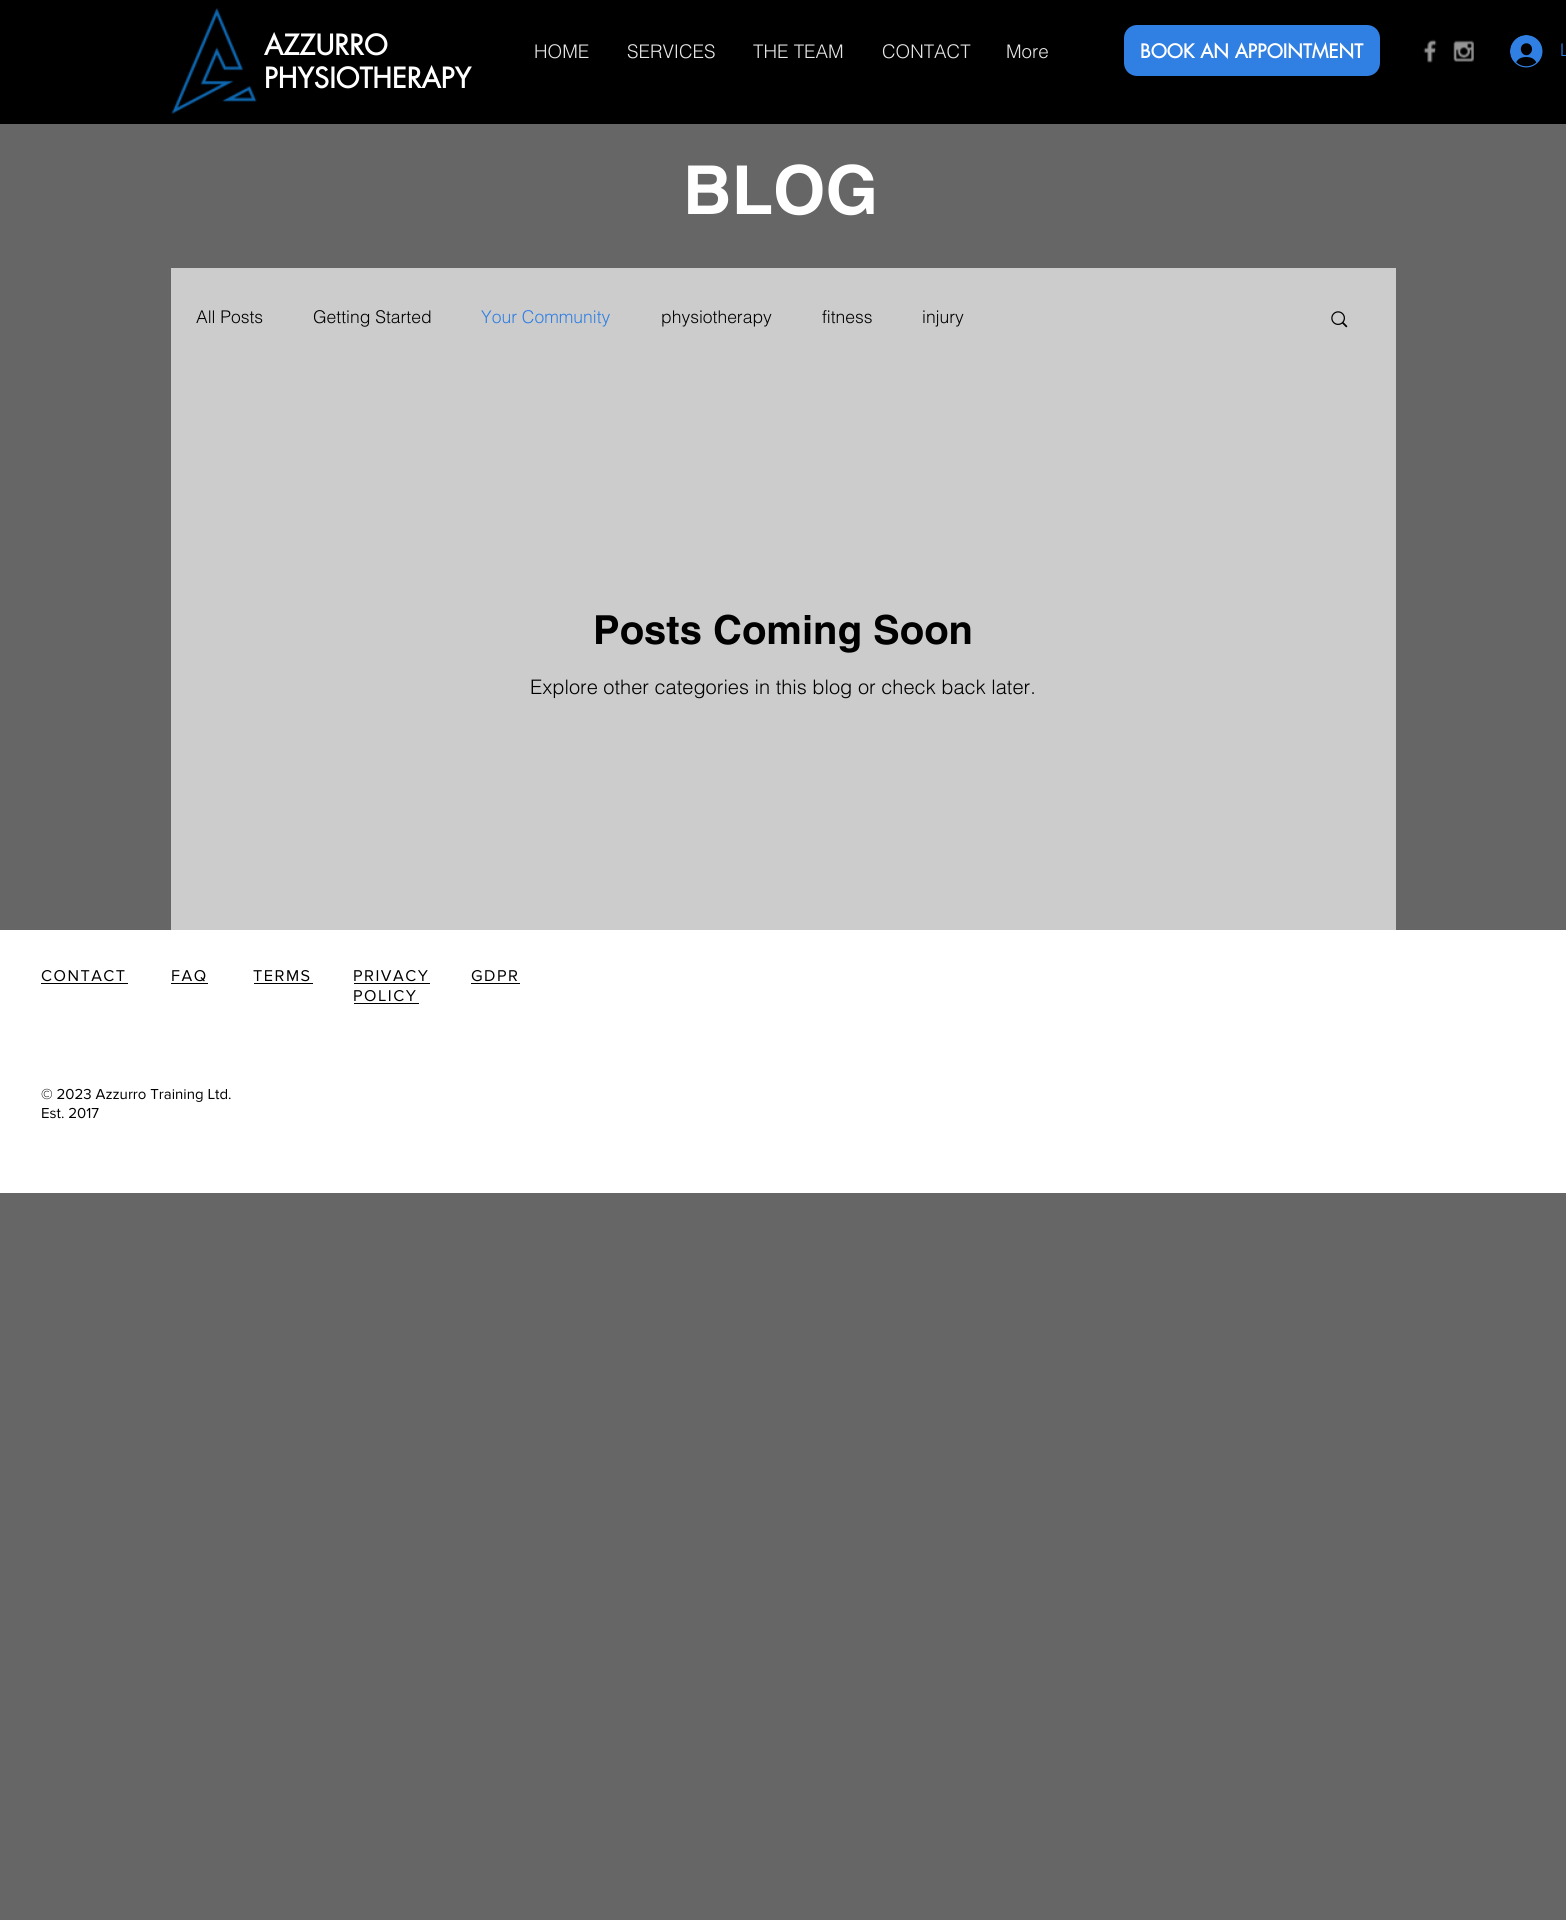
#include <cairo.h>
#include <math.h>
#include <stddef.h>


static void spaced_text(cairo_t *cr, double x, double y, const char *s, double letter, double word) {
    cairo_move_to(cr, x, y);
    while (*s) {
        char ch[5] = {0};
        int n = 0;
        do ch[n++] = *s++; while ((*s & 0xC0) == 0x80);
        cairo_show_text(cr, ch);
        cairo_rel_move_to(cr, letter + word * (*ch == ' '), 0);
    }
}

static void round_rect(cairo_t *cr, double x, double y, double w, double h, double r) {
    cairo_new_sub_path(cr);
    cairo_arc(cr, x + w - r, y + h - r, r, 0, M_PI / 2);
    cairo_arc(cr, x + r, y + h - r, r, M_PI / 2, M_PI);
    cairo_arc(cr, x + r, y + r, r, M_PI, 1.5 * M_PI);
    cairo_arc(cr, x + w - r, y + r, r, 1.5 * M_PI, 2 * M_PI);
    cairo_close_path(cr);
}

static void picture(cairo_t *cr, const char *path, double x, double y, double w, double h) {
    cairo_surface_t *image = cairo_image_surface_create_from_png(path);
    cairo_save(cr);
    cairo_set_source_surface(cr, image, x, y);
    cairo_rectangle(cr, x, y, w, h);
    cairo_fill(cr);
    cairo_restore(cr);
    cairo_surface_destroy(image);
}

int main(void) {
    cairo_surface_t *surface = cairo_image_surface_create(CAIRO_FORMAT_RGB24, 1566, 1920);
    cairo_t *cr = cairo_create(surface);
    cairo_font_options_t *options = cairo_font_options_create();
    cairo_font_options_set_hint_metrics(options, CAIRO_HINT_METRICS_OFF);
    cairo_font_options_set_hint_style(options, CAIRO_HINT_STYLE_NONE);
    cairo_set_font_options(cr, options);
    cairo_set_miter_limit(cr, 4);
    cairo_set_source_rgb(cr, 0.4, 0.4, 0.4);
    cairo_paint(cr);
    cairo_set_source_rgb(cr, 0, 0, 0);
    cairo_rectangle(cr, 0, 0, 1566, 124);
    cairo_fill(cr);
    picture(cr, "img1.png", 171, 7, 86, 107);
    cairo_select_font_face(cr, "futura", CAIRO_FONT_SLANT_NORMAL, CAIRO_FONT_WEIGHT_BOLD);
    cairo_set_font_size(cr, 27.5);
    cairo_set_source_rgb(cr, 1, 1, 1);
    cairo_move_to(cr, 264, 55);
    cairo_show_text(cr, "AZZURRO");
    cairo_move_to(cr, 264, 88);
    cairo_show_text(cr, "PHYSIOTHERAPY");
    cairo_select_font_face(cr, "helvetica Light", CAIRO_FONT_SLANT_NORMAL, CAIRO_FONT_WEIGHT_NORMAL);
    cairo_set_font_size(cr, 18.75);
    cairo_set_source_rgb(cr, 0.902, 0.902, 0.902);
    cairo_move_to(cr, 534, 58);
    cairo_show_text(cr, "HOME");
    cairo_move_to(cr, 627, 58);
    cairo_show_text(cr, "SERVICES");
    cairo_move_to(cr, 753, 58);
    cairo_show_text(cr, "THE TEAM");
    cairo_move_to(cr, 882, 58);
    cairo_show_text(cr, "CONTACT");
    cairo_move_to(cr, 1006, 58);
    cairo_show_text(cr, "More");
    cairo_set_source_rgb(cr, 0.188, 0.498, 0.886);
    round_rect(cr, 1124, 25, 256, 51, 13);
    cairo_fill(cr);
    cairo_select_font_face(cr, "futura", CAIRO_FONT_SLANT_NORMAL, CAIRO_FONT_WEIGHT_BOLD);
    cairo_set_source_rgb(cr, 1, 1, 1);
    cairo_move_to(cr, 1140, 58);
    cairo_show_text(cr, "BOOK AN APPOINTMENT");
    picture(cr, "img2.png", 1423, 39, 14, 24);
    picture(cr, "img3.png", 1453, 40, 21, 22);
    picture(cr, "img4.png", 1510, 35, 33, 33);
    cairo_select_font_face(cr, "helvetica Light", CAIRO_FONT_SLANT_NORMAL, CAIRO_FONT_WEIGHT_NORMAL);
    cairo_set_font_size(cr, 17.5);
    cairo_set_source_rgb(cr, 0.188, 0.498, 0.886);
    cairo_move_to(cr, 1560, 56);
    cairo_show_text(cr, "L");
    cairo_select_font_face(cr, "helvetica", CAIRO_FONT_SLANT_NORMAL, CAIRO_FONT_WEIGHT_BOLD);
    cairo_set_font_size(cr, 67.5);
    cairo_set_source_rgb(cr, 1, 1, 1);
    cairo_move_to(cr, 683, 214);
    cairo_show_text(cr, "BLOG");
    cairo_set_source_rgb(cr, 0.8, 0.8, 0.8);
    cairo_rectangle(cr, 171, 268, 1225, 662);
    cairo_fill(cr);
    cairo_select_font_face(cr, "helvetica Light", CAIRO_FONT_SLANT_NORMAL, CAIRO_FONT_WEIGHT_NORMAL);
    cairo_set_font_size(cr, 17.5);
    cairo_set_source_rgb(cr, 0, 0, 0);
    cairo_move_to(cr, 196, 323);
    cairo_show_text(cr, "All Posts");
    cairo_move_to(cr, 313, 323);
    cairo_show_text(cr, "Getting Started");
    cairo_set_source_rgb(cr, 0.188, 0.498, 0.886);
    cairo_move_to(cr, 481, 323);
    cairo_show_text(cr, "Your Community");
    cairo_set_source_rgb(cr, 0, 0, 0);
    cairo_move_to(cr, 661, 323);
    cairo_show_text(cr, "physiotherapy");
    cairo_move_to(cr, 822, 323);
    cairo_show_text(cr, "fitness");
    cairo_move_to(cr, 922, 323);
    cairo_show_text(cr, "injury");
    picture(cr, "img5.png", 1331, 311, 17, 17);
    cairo_select_font_face(cr, "helvetica", CAIRO_FONT_SLANT_NORMAL, CAIRO_FONT_WEIGHT_BOLD);
    cairo_set_font_size(cr, 40);
    cairo_move_to(cr, 593, 644);
    cairo_show_text(cr, "Posts Coming Soon");
    cairo_select_font_face(cr, "helvetica Light", CAIRO_FONT_SLANT_NORMAL, CAIRO_FONT_WEIGHT_NORMAL);
    cairo_set_font_size(cr, 20);
    cairo_move_to(cr, 530, 694);
    cairo_show_text(cr, "Explore other categories in this blog or check back later.");
    cairo_set_source_rgb(cr, 1, 1, 1);
    cairo_rectangle(cr, 0, 930, 1566, 263);
    cairo_fill(cr);
    cairo_select_font_face(cr, "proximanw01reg", CAIRO_FONT_SLANT_NORMAL, CAIRO_FONT_WEIGHT_NORMAL);
    cairo_set_font_size(cr, 16.25);
    cairo_set_source_rgb(cr, 0, 0, 0);
    spaced_text(cr, 41, 981, "CONTACT", 1.5, 0);
    cairo_rectangle(cr, 41, 983, 87, 1);
    cairo_fill(cr);
    spaced_text(cr, 171, 981, "FAQ", 1.5, 0);
    cairo_rectangle(cr, 171, 983, 37, 1);
    cairo_fill(cr);
    spaced_text(cr, 253, 981, "TERMS", 1.5, 0);
    cairo_rectangle(cr, 254, 983, 59, 1);
    cairo_fill(cr);
    spaced_text(cr, 353, 981, "PRIVACY", 1.5, 0);
    cairo_rectangle(cr, 354, 983, 76, 1);
    cairo_fill(cr);
    spaced_text(cr, 353, 1001, "POLICY", 1.5, 0);
    cairo_rectangle(cr, 354, 1003, 65, 1);
    cairo_fill(cr);
    spaced_text(cr, 471, 981, "GDPR", 1.5, 0);
    cairo_rectangle(cr, 471, 983, 49, 1);
    cairo_fill(cr);
    cairo_set_font_size(cr, 15);
    cairo_move_to(cr, 41, 1099);
    cairo_show_text(cr, "© 2023 Azzurro Training Ltd.");
    cairo_move_to(cr, 41, 1118);
    cairo_show_text(cr, "Est. 2017");
    cairo_surface_write_to_png(surface, "page.png");
    cairo_font_options_destroy(options);
    cairo_destroy(cr);
    cairo_surface_destroy(surface);
    return 0;
}
